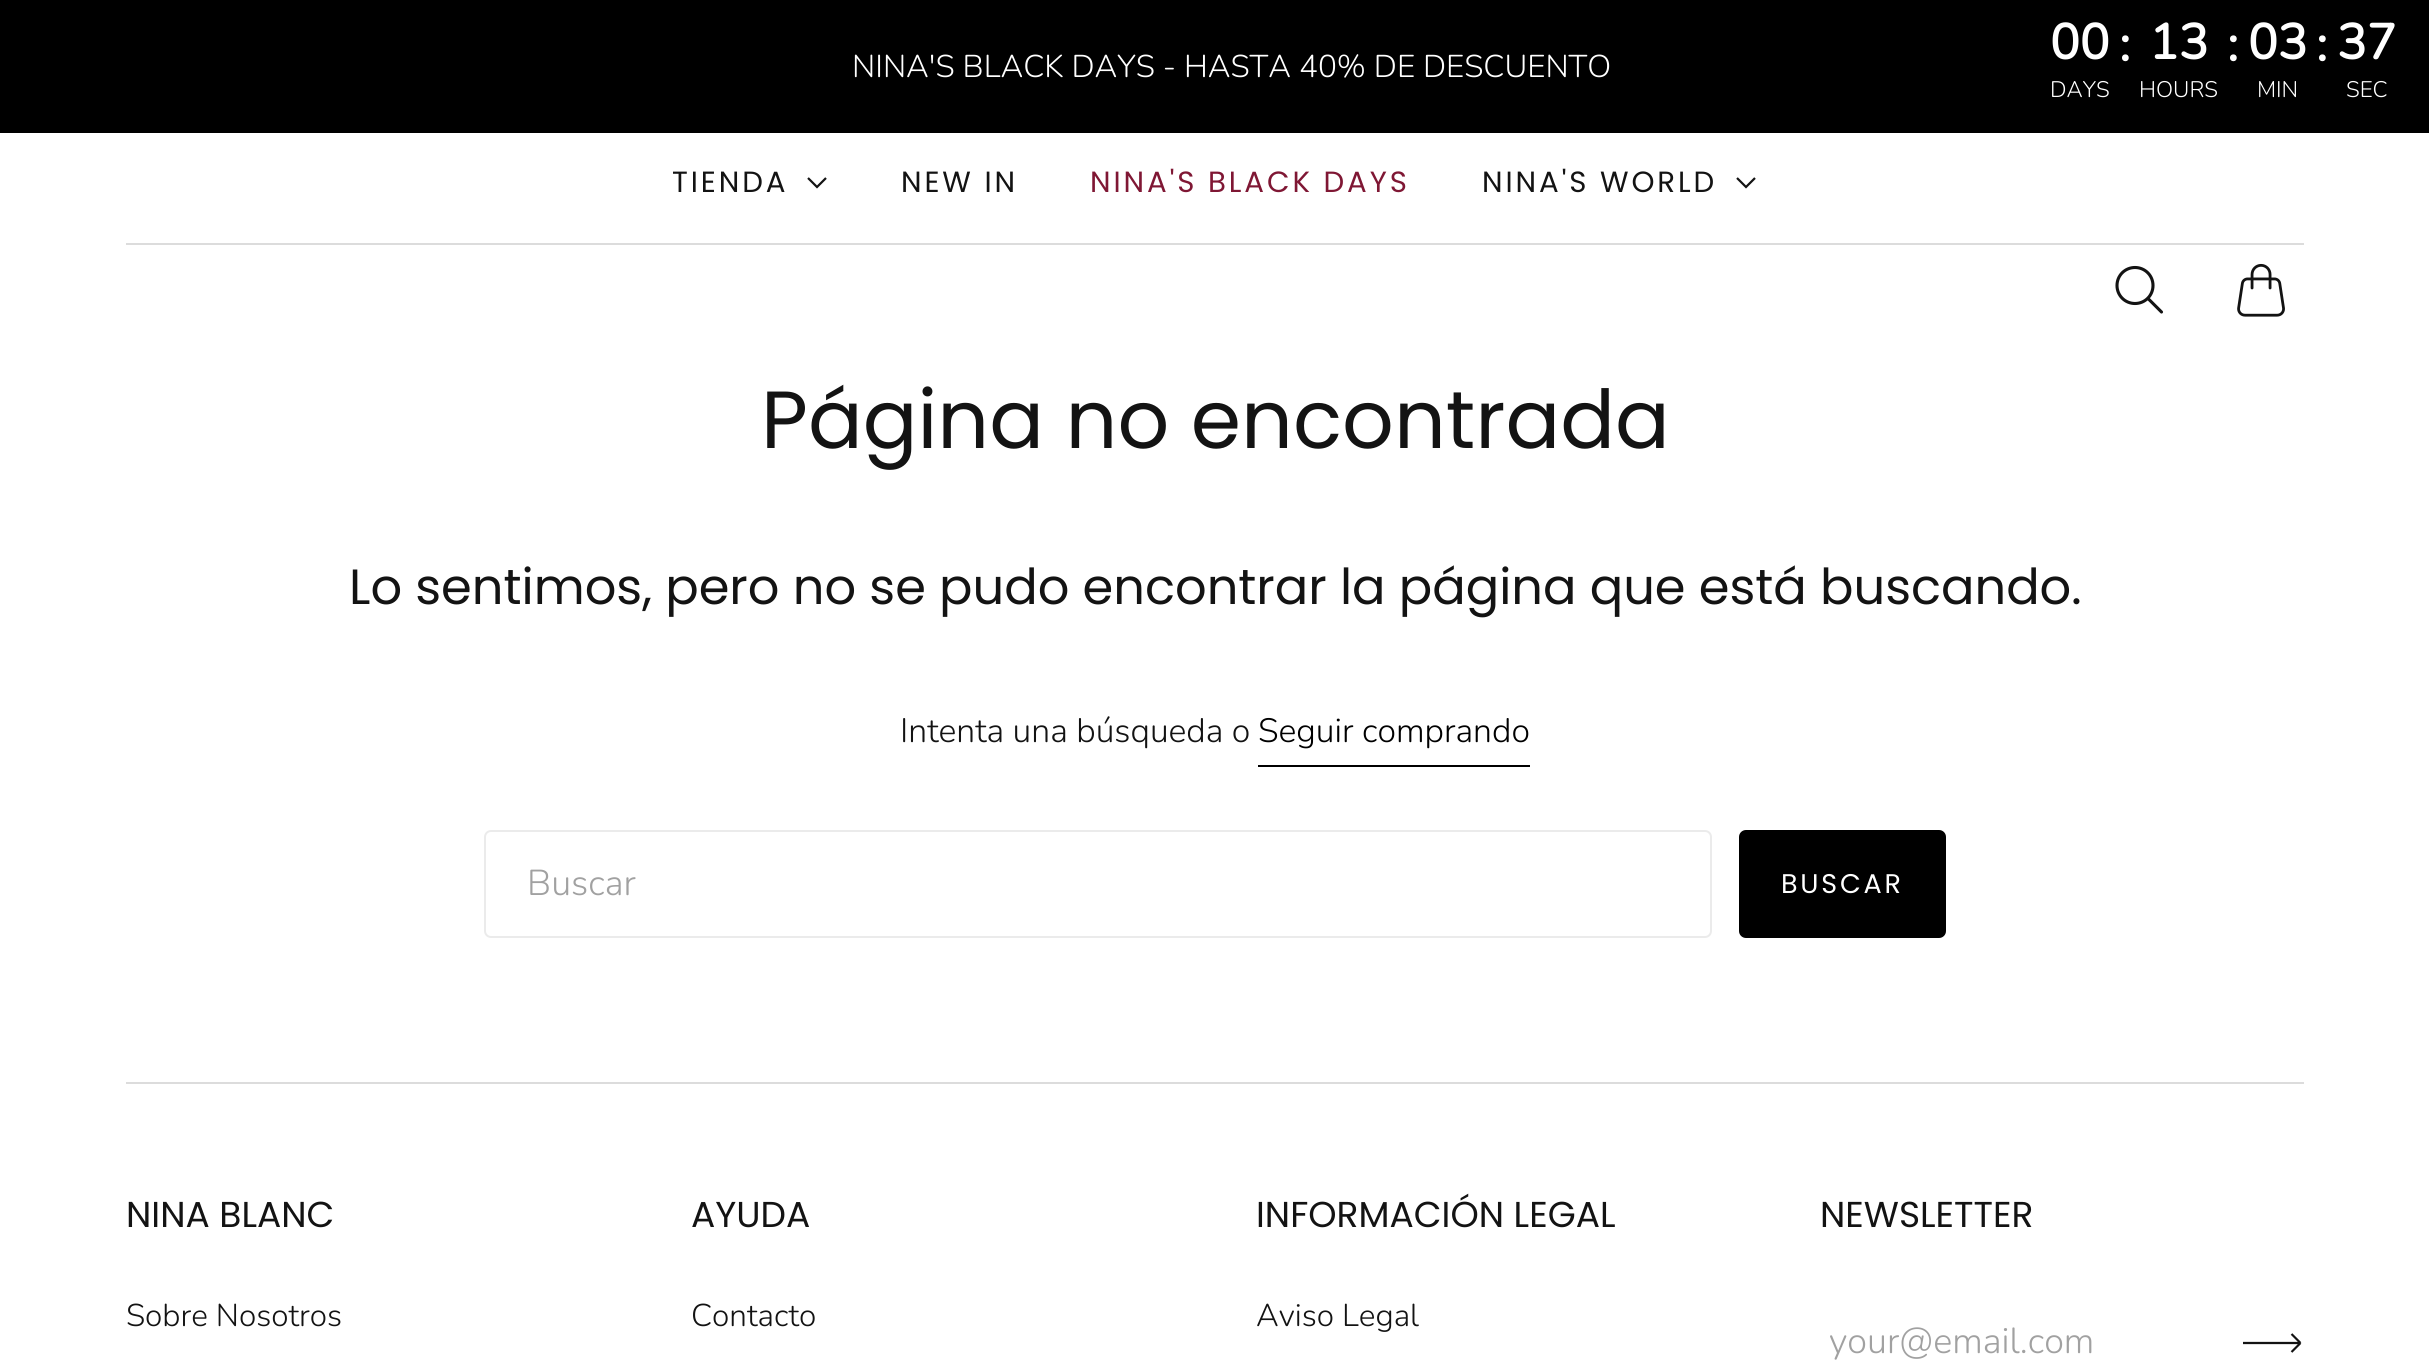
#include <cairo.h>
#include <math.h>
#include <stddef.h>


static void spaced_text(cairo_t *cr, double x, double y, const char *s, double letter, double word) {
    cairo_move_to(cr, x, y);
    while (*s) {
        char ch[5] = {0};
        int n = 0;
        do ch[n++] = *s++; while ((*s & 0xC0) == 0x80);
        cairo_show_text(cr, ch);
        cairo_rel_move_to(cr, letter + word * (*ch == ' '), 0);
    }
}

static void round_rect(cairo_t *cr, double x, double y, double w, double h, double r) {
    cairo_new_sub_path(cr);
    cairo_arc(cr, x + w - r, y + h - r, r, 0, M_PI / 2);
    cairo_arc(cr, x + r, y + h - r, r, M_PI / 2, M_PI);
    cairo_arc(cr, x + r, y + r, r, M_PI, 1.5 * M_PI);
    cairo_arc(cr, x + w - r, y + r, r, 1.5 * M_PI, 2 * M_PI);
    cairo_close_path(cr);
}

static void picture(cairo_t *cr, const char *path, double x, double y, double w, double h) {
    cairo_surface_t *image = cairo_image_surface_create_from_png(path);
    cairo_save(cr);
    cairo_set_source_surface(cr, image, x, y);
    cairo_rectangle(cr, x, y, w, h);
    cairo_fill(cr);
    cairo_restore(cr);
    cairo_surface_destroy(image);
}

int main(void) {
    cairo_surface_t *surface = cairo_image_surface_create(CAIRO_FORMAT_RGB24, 2429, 1360);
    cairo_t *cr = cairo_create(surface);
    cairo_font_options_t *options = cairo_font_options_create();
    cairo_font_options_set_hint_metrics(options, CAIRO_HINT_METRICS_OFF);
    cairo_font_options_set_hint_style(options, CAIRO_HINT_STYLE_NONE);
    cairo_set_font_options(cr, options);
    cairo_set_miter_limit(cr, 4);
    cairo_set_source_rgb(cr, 1, 1, 1);
    cairo_paint(cr);
    cairo_set_source_rgb(cr, 0, 0, 0);
    cairo_rectangle(cr, 0, 0, 2429, 133);
    cairo_fill(cr);
    cairo_select_font_face(cr, "Nunito Light", CAIRO_FONT_SLANT_NORMAL, CAIRO_FONT_WEIGHT_NORMAL);
    cairo_set_font_size(cr, 31.5);
    cairo_set_source_rgb(cr, 1, 1, 1);
    cairo_move_to(cr, 852, 77);
    cairo_show_text(cr, "NINA'S BLACK DAYS - HASTA 40% DE DESCUENTO");
    cairo_select_font_face(cr, "Nunito", CAIRO_FONT_SLANT_NORMAL, CAIRO_FONT_WEIGHT_BOLD);
    cairo_set_font_size(cr, 49.5);
    cairo_move_to(cr, 2050, 59);
    cairo_show_text(cr, "00");
    cairo_select_font_face(cr, "Nunito Light", CAIRO_FONT_SLANT_NORMAL, CAIRO_FONT_WEIGHT_NORMAL);
    cairo_set_font_size(cr, 22.5);
    cairo_move_to(cr, 2050, 97);
    cairo_show_text(cr, "DAYS");
    cairo_select_font_face(cr, "Nunito", CAIRO_FONT_SLANT_NORMAL, CAIRO_FONT_WEIGHT_BOLD);
    cairo_set_font_size(cr, 49.5);
    cairo_move_to(cr, 2119, 61);
    cairo_show_text(cr, ":");
    cairo_move_to(cr, 2149, 59);
    cairo_show_text(cr, "13");
    cairo_select_font_face(cr, "Nunito Light", CAIRO_FONT_SLANT_NORMAL, CAIRO_FONT_WEIGHT_NORMAL);
    cairo_set_font_size(cr, 22.5);
    cairo_move_to(cr, 2139, 97);
    cairo_show_text(cr, "HOURS");
    cairo_select_font_face(cr, "Nunito", CAIRO_FONT_SLANT_NORMAL, CAIRO_FONT_WEIGHT_BOLD);
    cairo_set_font_size(cr, 49.5);
    cairo_move_to(cr, 2227, 61);
    cairo_show_text(cr, ":");
    cairo_move_to(cr, 2248, 59);
    cairo_show_text(cr, "03");
    cairo_select_font_face(cr, "Nunito Light", CAIRO_FONT_SLANT_NORMAL, CAIRO_FONT_WEIGHT_NORMAL);
    cairo_set_font_size(cr, 22.5);
    cairo_move_to(cr, 2257, 97);
    cairo_show_text(cr, "MIN");
    cairo_select_font_face(cr, "Nunito", CAIRO_FONT_SLANT_NORMAL, CAIRO_FONT_WEIGHT_BOLD);
    cairo_set_font_size(cr, 49.5);
    cairo_move_to(cr, 2316, 61);
    cairo_show_text(cr, ":");
    cairo_move_to(cr, 2337, 59);
    cairo_show_text(cr, "37");
    cairo_select_font_face(cr, "Nunito Light", CAIRO_FONT_SLANT_NORMAL, CAIRO_FONT_WEIGHT_NORMAL);
    cairo_set_font_size(cr, 22.5);
    cairo_move_to(cr, 2346, 97);
    cairo_show_text(cr, "SEC");
    cairo_set_source_rgb(cr, 0.863, 0.863, 0.863);
    cairo_rectangle(cr, 126, 243, 2178, 2);
    cairo_fill(cr);
    cairo_select_font_face(cr, "Poppins", CAIRO_FONT_SLANT_NORMAL, CAIRO_FONT_WEIGHT_NORMAL);
    cairo_set_font_size(cr, 29.25);
    cairo_set_source_rgb(cr, 0.075, 0.075, 0.075);
    spaced_text(cr, 672, 192, "TIENDA", 2.9, 0);
    cairo_new_path(cr);
    cairo_move_to(cr, 808, 178);
    cairo_line_to(cr, 817, 187);
    cairo_line_to(cr, 826, 178);
    cairo_set_line_width(cr, 2.2);
    cairo_stroke(cr);
    spaced_text(cr, 901, 192, "NEW IN", 2.9, 0);
    cairo_set_source_rgb(cr, 0.498, 0.09, 0.204);
    spaced_text(cr, 1090, 192, "NINA'S BLACK DAYS", 2.9, 0);
    cairo_set_source_rgb(cr, 0.075, 0.075, 0.075);
    spaced_text(cr, 1482, 192, "NINA'S WORLD", 2.9, 0);
    cairo_new_path(cr);
    cairo_move_to(cr, 1737, 178);
    cairo_line_to(cr, 1746, 187);
    cairo_line_to(cr, 1755, 178);
    cairo_stroke(cr);
    cairo_new_path(cr);
    cairo_move_to(cr, 2135, 303.5);
    cairo_curve_to(cr, 2145, 303.5, 2153, 295.5, 2153, 285.5);
    cairo_curve_to(cr, 2153, 275.5, 2145, 267.5, 2135, 267.5);
    cairo_curve_to(cr, 2125, 267.5, 2117, 275.5, 2117, 285.5);
    cairo_curve_to(cr, 2117, 295.5, 2125, 303.5, 2135, 303.5);
    cairo_close_path(cr);
    cairo_move_to(cr, 2161.5, 312);
    cairo_line_to(cr, 2148.5, 299);
    cairo_set_line_width(cr, 3.1);
    cairo_set_line_cap(cr, CAIRO_LINE_CAP_ROUND);
    cairo_set_line_join(cr, CAIRO_LINE_JOIN_ROUND);
    cairo_stroke(cr);
    picture(cr, "img1.png", 2237, 263, 48, 54);
    cairo_set_font_size(cr, 81);
    cairo_move_to(cr, 761, 448);
    cairo_show_text(cr, "Página no encontrada");
    cairo_set_font_size(cr, 49.5);
    cairo_move_to(cr, 349, 604);
    cairo_show_text(cr, "Lo sentimos, pero no se pudo encontrar la página que está buscando.");
    cairo_select_font_face(cr, "Nunito Light", CAIRO_FONT_SLANT_NORMAL, CAIRO_FONT_WEIGHT_NORMAL);
    cairo_set_font_size(cr, 33.75);
    cairo_move_to(cr, 900, 742);
    cairo_show_text(cr, "Intenta una búsqueda o");
    cairo_set_source_rgb(cr, 0, 0, 0);
    cairo_move_to(cr, 1258, 742);
    cairo_show_text(cr, "Seguir comprando");
    cairo_rectangle(cr, 1258, 765, 272, 2);
    cairo_fill(cr);
    round_rect(cr, 485, 831, 1226, 106, 6);
    cairo_set_source_rgb(cr, 0.918, 0.918, 0.918);
    cairo_set_line_width(cr, 2);
    cairo_set_line_cap(cr, CAIRO_LINE_CAP_BUTT);
    cairo_set_line_join(cr, CAIRO_LINE_JOIN_MITER);
    cairo_stroke(cr);
    cairo_set_font_size(cr, 36);
    cairo_set_source_rgb(cr, 0.631, 0.631, 0.631);
    cairo_move_to(cr, 527, 895);
    cairo_show_text(cr, "Buscar");
    cairo_set_source_rgb(cr, 0, 0, 0);
    round_rect(cr, 1740, 831, 205, 106, 6);
    cairo_fill_preserve(cr);
    cairo_stroke(cr);
    cairo_select_font_face(cr, "Poppins", CAIRO_FONT_SLANT_NORMAL, CAIRO_FONT_WEIGHT_NORMAL);
    cairo_set_font_size(cr, 27);
    cairo_set_source_rgb(cr, 1, 1, 1);
    spaced_text(cr, 1781, 893, "BUSCAR", 2.75, 0);
    cairo_set_source_rgb(cr, 0.863, 0.863, 0.863);
    cairo_rectangle(cr, 126, 1082, 2178, 2);
    cairo_fill(cr);
    cairo_set_font_size(cr, 36);
    cairo_set_source_rgb(cr, 0.075, 0.075, 0.075);
    cairo_move_to(cr, 126, 1227);
    cairo_show_text(cr, "NINA BLANC");
    cairo_select_font_face(cr, "Nunito Light", CAIRO_FONT_SLANT_NORMAL, CAIRO_FONT_WEIGHT_NORMAL);
    cairo_set_font_size(cr, 31.5);
    cairo_move_to(cr, 126, 1326);
    cairo_show_text(cr, "Sobre Nosotros");
    cairo_select_font_face(cr, "Poppins", CAIRO_FONT_SLANT_NORMAL, CAIRO_FONT_WEIGHT_NORMAL);
    cairo_set_font_size(cr, 36);
    cairo_move_to(cr, 691, 1227);
    cairo_show_text(cr, "AYUDA");
    cairo_select_font_face(cr, "Nunito Light", CAIRO_FONT_SLANT_NORMAL, CAIRO_FONT_WEIGHT_NORMAL);
    cairo_set_font_size(cr, 31.5);
    cairo_move_to(cr, 691, 1326);
    cairo_show_text(cr, "Contacto");
    cairo_select_font_face(cr, "Poppins", CAIRO_FONT_SLANT_NORMAL, CAIRO_FONT_WEIGHT_NORMAL);
    cairo_set_font_size(cr, 36);
    cairo_move_to(cr, 1256, 1227);
    cairo_show_text(cr, "INFORMACIÓN LEGAL");
    cairo_select_font_face(cr, "Nunito Light", CAIRO_FONT_SLANT_NORMAL, CAIRO_FONT_WEIGHT_NORMAL);
    cairo_set_font_size(cr, 31.5);
    cairo_move_to(cr, 1256, 1326);
    cairo_show_text(cr, "Aviso Legal");
    cairo_select_font_face(cr, "Poppins", CAIRO_FONT_SLANT_NORMAL, CAIRO_FONT_WEIGHT_NORMAL);
    cairo_set_font_size(cr, 36);
    cairo_move_to(cr, 1820, 1227);
    cairo_show_text(cr, "NEWSLETTER");
    cairo_select_font_face(cr, "Nunito Light", CAIRO_FONT_SLANT_NORMAL, CAIRO_FONT_WEIGHT_NORMAL);
    cairo_set_source_rgb(cr, 0.631, 0.631, 0.631);
    cairo_move_to(cr, 1829, 1353);
    cairo_show_text(cr, "your@email.com");
    cairo_new_path(cr);
    cairo_move_to(cr, 2243, 1343);
    cairo_line_to(cr, 2300.5, 1343);
    cairo_move_to(cr, 2300.5, 1343);
    cairo_line_to(cr, 2291.5, 1334);
    cairo_move_to(cr, 2300.5, 1343);
    cairo_line_to(cr, 2291.5, 1352);
    cairo_set_source_rgb(cr, 0.075, 0.075, 0.075);
    cairo_set_line_width(cr, 2.2);
    cairo_stroke(cr);
    cairo_surface_write_to_png(surface, "page.png");
    cairo_font_options_destroy(options);
    cairo_destroy(cr);
    cairo_surface_destroy(surface);
    return 0;
}
